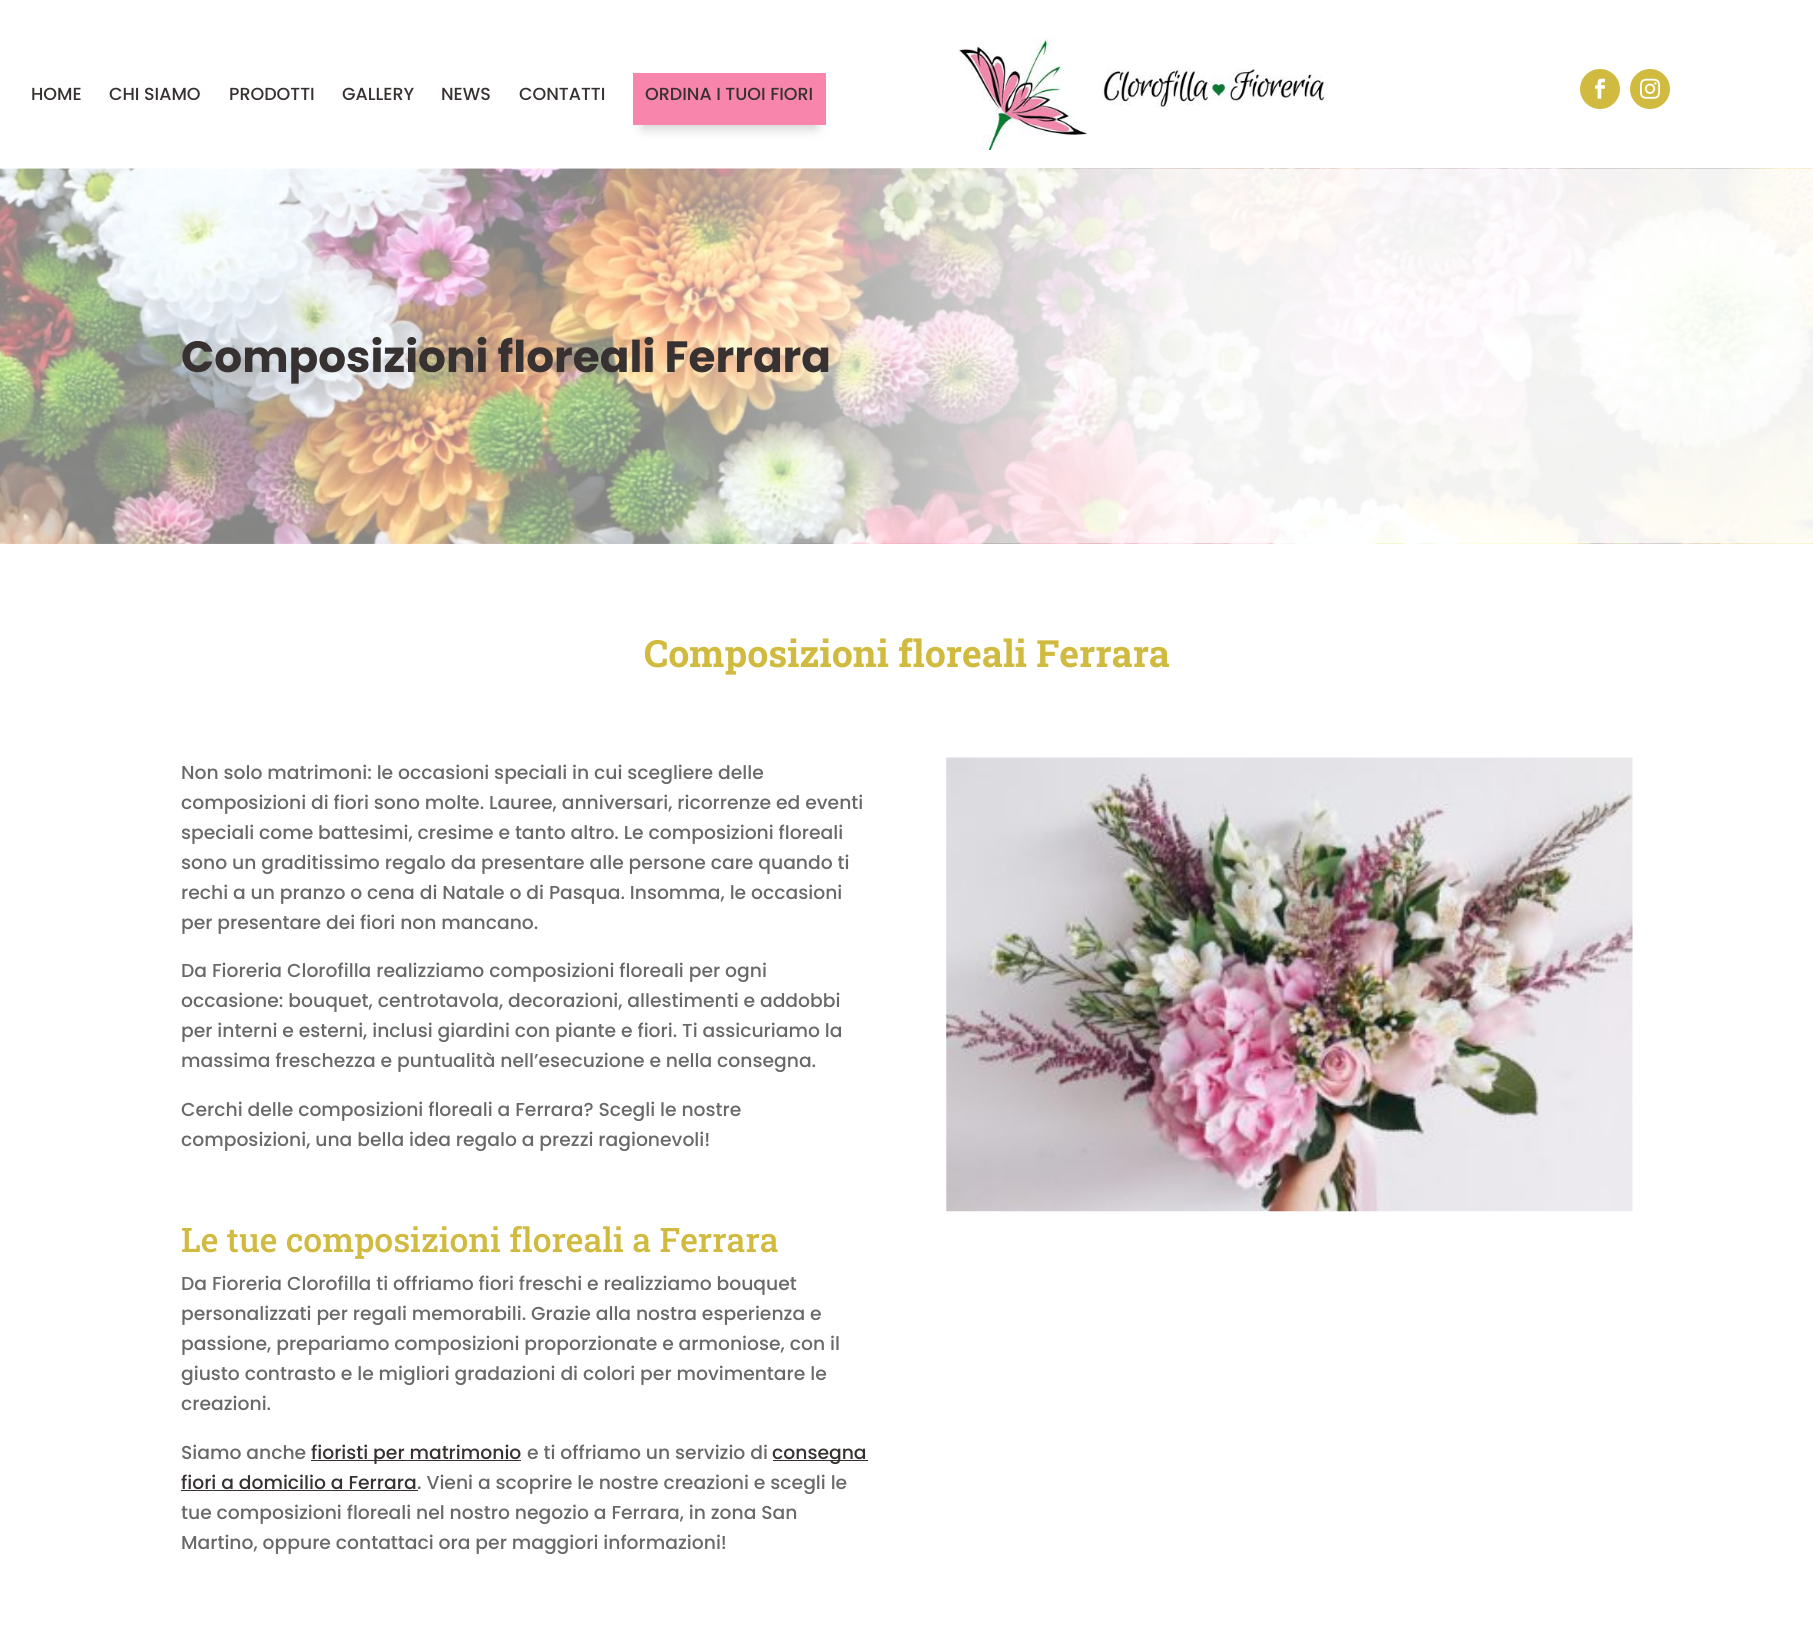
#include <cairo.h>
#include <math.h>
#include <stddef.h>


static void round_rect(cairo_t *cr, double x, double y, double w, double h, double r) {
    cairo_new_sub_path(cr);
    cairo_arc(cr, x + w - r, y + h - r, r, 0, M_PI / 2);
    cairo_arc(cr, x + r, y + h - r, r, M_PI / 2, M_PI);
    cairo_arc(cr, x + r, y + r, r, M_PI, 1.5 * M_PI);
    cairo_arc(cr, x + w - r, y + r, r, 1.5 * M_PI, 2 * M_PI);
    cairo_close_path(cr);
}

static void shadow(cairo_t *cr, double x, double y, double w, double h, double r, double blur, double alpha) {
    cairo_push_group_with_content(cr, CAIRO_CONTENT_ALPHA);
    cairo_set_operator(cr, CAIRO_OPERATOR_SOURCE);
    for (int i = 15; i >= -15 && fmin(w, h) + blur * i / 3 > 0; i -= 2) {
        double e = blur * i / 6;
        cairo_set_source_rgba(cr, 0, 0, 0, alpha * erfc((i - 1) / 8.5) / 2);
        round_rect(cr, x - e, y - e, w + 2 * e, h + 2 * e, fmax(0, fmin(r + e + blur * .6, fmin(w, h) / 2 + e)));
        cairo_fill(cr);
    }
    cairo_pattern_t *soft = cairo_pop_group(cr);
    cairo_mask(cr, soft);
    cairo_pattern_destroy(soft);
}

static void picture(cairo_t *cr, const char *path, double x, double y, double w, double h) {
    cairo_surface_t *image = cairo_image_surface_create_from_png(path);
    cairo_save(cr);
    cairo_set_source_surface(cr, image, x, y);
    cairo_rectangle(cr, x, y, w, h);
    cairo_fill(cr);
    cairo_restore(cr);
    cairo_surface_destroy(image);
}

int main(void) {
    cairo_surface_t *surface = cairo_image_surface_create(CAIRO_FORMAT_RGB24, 1813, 1629);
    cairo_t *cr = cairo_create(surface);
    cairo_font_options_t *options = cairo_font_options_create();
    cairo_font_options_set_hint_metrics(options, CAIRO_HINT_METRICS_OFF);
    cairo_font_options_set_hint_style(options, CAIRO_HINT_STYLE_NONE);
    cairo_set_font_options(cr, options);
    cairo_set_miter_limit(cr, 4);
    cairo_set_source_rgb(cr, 1, 1, 1);
    cairo_paint(cr);
    cairo_select_font_face(cr, "Poppins Medium", CAIRO_FONT_SLANT_NORMAL, CAIRO_FONT_WEIGHT_NORMAL);
    cairo_set_font_size(cr, 17.5);
    cairo_set_source_rgb(cr, 0.216, 0.196, 0.192);
    cairo_move_to(cr, 31, 100);
    cairo_show_text(cr, "HOME");
    cairo_move_to(cr, 109, 100);
    cairo_show_text(cr, "CHI SIAMO");
    cairo_move_to(cr, 229, 100);
    cairo_show_text(cr, "PRODOTTI");
    cairo_move_to(cr, 342, 100);
    cairo_show_text(cr, "GALLERY");
    cairo_move_to(cr, 441, 100);
    cairo_show_text(cr, "NEWS");
    cairo_move_to(cr, 519, 100);
    cairo_show_text(cr, "CONTATTI");
    cairo_set_source_rgb(cr, 0.8, 0.8, 0.8);
    shadow(cr, 643, 95, 173, 33, 0, 6, 1);
    cairo_set_source_rgb(cr, 0.969, 0.522, 0.671);
    cairo_rectangle(cr, 633, 73, 193, 52);
    cairo_fill(cr);
    cairo_set_source_rgb(cr, 0.216, 0.196, 0.192);
    cairo_move_to(cr, 645, 100);
    cairo_show_text(cr, "ORDINA I TUOI FIORI");
    picture(cr, "img1.png", 958, 37, 370, 113);
    cairo_set_source_rgb(cr, 0.816, 0.733, 0.251);
    cairo_arc(cr, 1600, 89, 20, 0, 2 * M_PI);
    cairo_fill(cr);
    picture(cr, "img2.png", 1595, 78, 10, 21);
    cairo_arc(cr, 1650, 89, 20, 0, 2 * M_PI);
    cairo_fill(cr);
    picture(cr, "img3.png", 1640, 78, 20, 21);
    picture(cr, "img4.png", 0, 168, 1813, 376);
    cairo_select_font_face(cr, "Poppins", CAIRO_FONT_SLANT_NORMAL, CAIRO_FONT_WEIGHT_BOLD);
    cairo_set_font_size(cr, 43.75);
    cairo_set_source_rgb(cr, 0.216, 0.196, 0.192);
    cairo_move_to(cr, 181, 372);
    cairo_show_text(cr, "Composizioni floreali Ferrara");
    cairo_select_font_face(cr, "Roboto Slab", CAIRO_FONT_SLANT_NORMAL, CAIRO_FONT_WEIGHT_BOLD);
    cairo_set_font_size(cr, 37.5);
    cairo_set_source_rgb(cr, 0.816, 0.733, 0.251);
    cairo_move_to(cr, 644, 667);
    cairo_show_text(cr, "Composizioni floreali Ferrara");
    cairo_select_font_face(cr, "Poppins Medium", CAIRO_FONT_SLANT_NORMAL, CAIRO_FONT_WEIGHT_NORMAL);
    cairo_set_font_size(cr, 18.75);
    cairo_set_source_rgb(cr, 0.412, 0.412, 0.412);
    cairo_move_to(cr, 181, 779);
    cairo_show_text(cr, "Non solo matrimoni: le occasioni speciali in cui scegliere delle");
    cairo_move_to(cr, 181, 809);
    cairo_show_text(cr, "composizioni di fiori sono molte. Lauree, anniversari, ricorrenze ed eventi");
    cairo_move_to(cr, 181, 839);
    cairo_show_text(cr, "speciali come battesimi, cresime e tanto altro. Le composizioni floreali");
    cairo_move_to(cr, 181, 869);
    cairo_show_text(cr, "sono un graditissimo regalo da presentare alle persone care quando ti");
    cairo_move_to(cr, 181, 899);
    cairo_show_text(cr, "rechi a un pranzo o cena di Natale o di Pasqua. Insomma, le occasioni");
    cairo_move_to(cr, 181, 929);
    cairo_show_text(cr, "per presentare dei fiori non mancano.");
    cairo_move_to(cr, 181, 977);
    cairo_show_text(cr, "Da Fioreria Clorofilla realizziamo composizioni floreali per ogni");
    cairo_move_to(cr, 181, 1007);
    cairo_show_text(cr, "occasione: bouquet, centrotavola, decorazioni, allestimenti e addobbi");
    cairo_move_to(cr, 181, 1037);
    cairo_show_text(cr, "per interni e esterni, inclusi giardini con piante e fiori. Ti assicuriamo la");
    cairo_move_to(cr, 181, 1067);
    cairo_show_text(cr, "massima freschezza e puntualità nell’esecuzione e nella consegna.");
    cairo_move_to(cr, 181, 1116);
    cairo_show_text(cr, "Cerchi delle composizioni floreali a Ferrara? Scegli le nostre");
    cairo_move_to(cr, 181, 1146);
    cairo_show_text(cr, "composizioni, una bella idea regalo a prezzi ragionevoli!");
    cairo_select_font_face(cr, "Roboto Slab Medium", CAIRO_FONT_SLANT_NORMAL, CAIRO_FONT_WEIGHT_NORMAL);
    cairo_set_font_size(cr, 33.75);
    cairo_set_source_rgb(cr, 0.816, 0.733, 0.251);
    cairo_move_to(cr, 181, 1252);
    cairo_show_text(cr, "Le tue composizioni floreali a Ferrara");
    cairo_select_font_face(cr, "Poppins Medium", CAIRO_FONT_SLANT_NORMAL, CAIRO_FONT_WEIGHT_NORMAL);
    cairo_set_font_size(cr, 18.75);
    cairo_set_source_rgb(cr, 0.412, 0.412, 0.412);
    cairo_move_to(cr, 181, 1290);
    cairo_show_text(cr, "Da Fioreria Clorofilla ti offriamo fiori freschi e realizziamo bouquet");
    cairo_move_to(cr, 181, 1320);
    cairo_show_text(cr, "personalizzati per regali memorabili. Grazie alla nostra esperienza e");
    cairo_move_to(cr, 181, 1350);
    cairo_show_text(cr, "passione, prepariamo composizioni proporzionate e armoniose, con il");
    cairo_move_to(cr, 181, 1380);
    cairo_show_text(cr, "giusto contrasto e le migliori gradazioni di colori per movimentare le");
    cairo_move_to(cr, 181, 1410);
    cairo_show_text(cr, "creazioni.");
    cairo_move_to(cr, 181, 1459);
    cairo_show_text(cr, "Siamo anche");
    cairo_set_source_rgb(cr, 0.216, 0.196, 0.192);
    cairo_rectangle(cr, 311, 1460, 210, 1);
    cairo_fill(cr);
    cairo_move_to(cr, 311, 1459);
    cairo_show_text(cr, "fioristi per matrimonio");
    cairo_set_source_rgb(cr, 0.412, 0.412, 0.412);
    cairo_move_to(cr, 527, 1459);
    cairo_show_text(cr, "e ti offriamo un servizio di");
    cairo_set_source_rgb(cr, 0.216, 0.196, 0.192);
    cairo_rectangle(cr, 773, 1460, 95, 1);
    cairo_fill(cr);
    cairo_move_to(cr, 772, 1459);
    cairo_show_text(cr, "consegna");
    cairo_move_to(cr, 181, 1489);
    cairo_show_text(cr, "fiori a domicilio a Ferrara");
    cairo_rectangle(cr, 181, 1490, 237, 1);
    cairo_fill(cr);
    cairo_set_source_rgb(cr, 0.412, 0.412, 0.412);
    cairo_move_to(cr, 417, 1489);
    cairo_show_text(cr, ". Vieni a scoprire le nostre creazioni e scegli le");
    cairo_move_to(cr, 181, 1519);
    cairo_show_text(cr, "tue composizioni floreali nel nostro negozio a Ferrara, in zona San");
    cairo_move_to(cr, 181, 1549);
    cairo_show_text(cr, "Martino, oppure contattaci ora per maggiori informazioni!");
    picture(cr, "img5.png", 946, 757, 687, 455);
    cairo_surface_write_to_png(surface, "page.png");
    cairo_font_options_destroy(options);
    cairo_destroy(cr);
    cairo_surface_destroy(surface);
    return 0;
}
